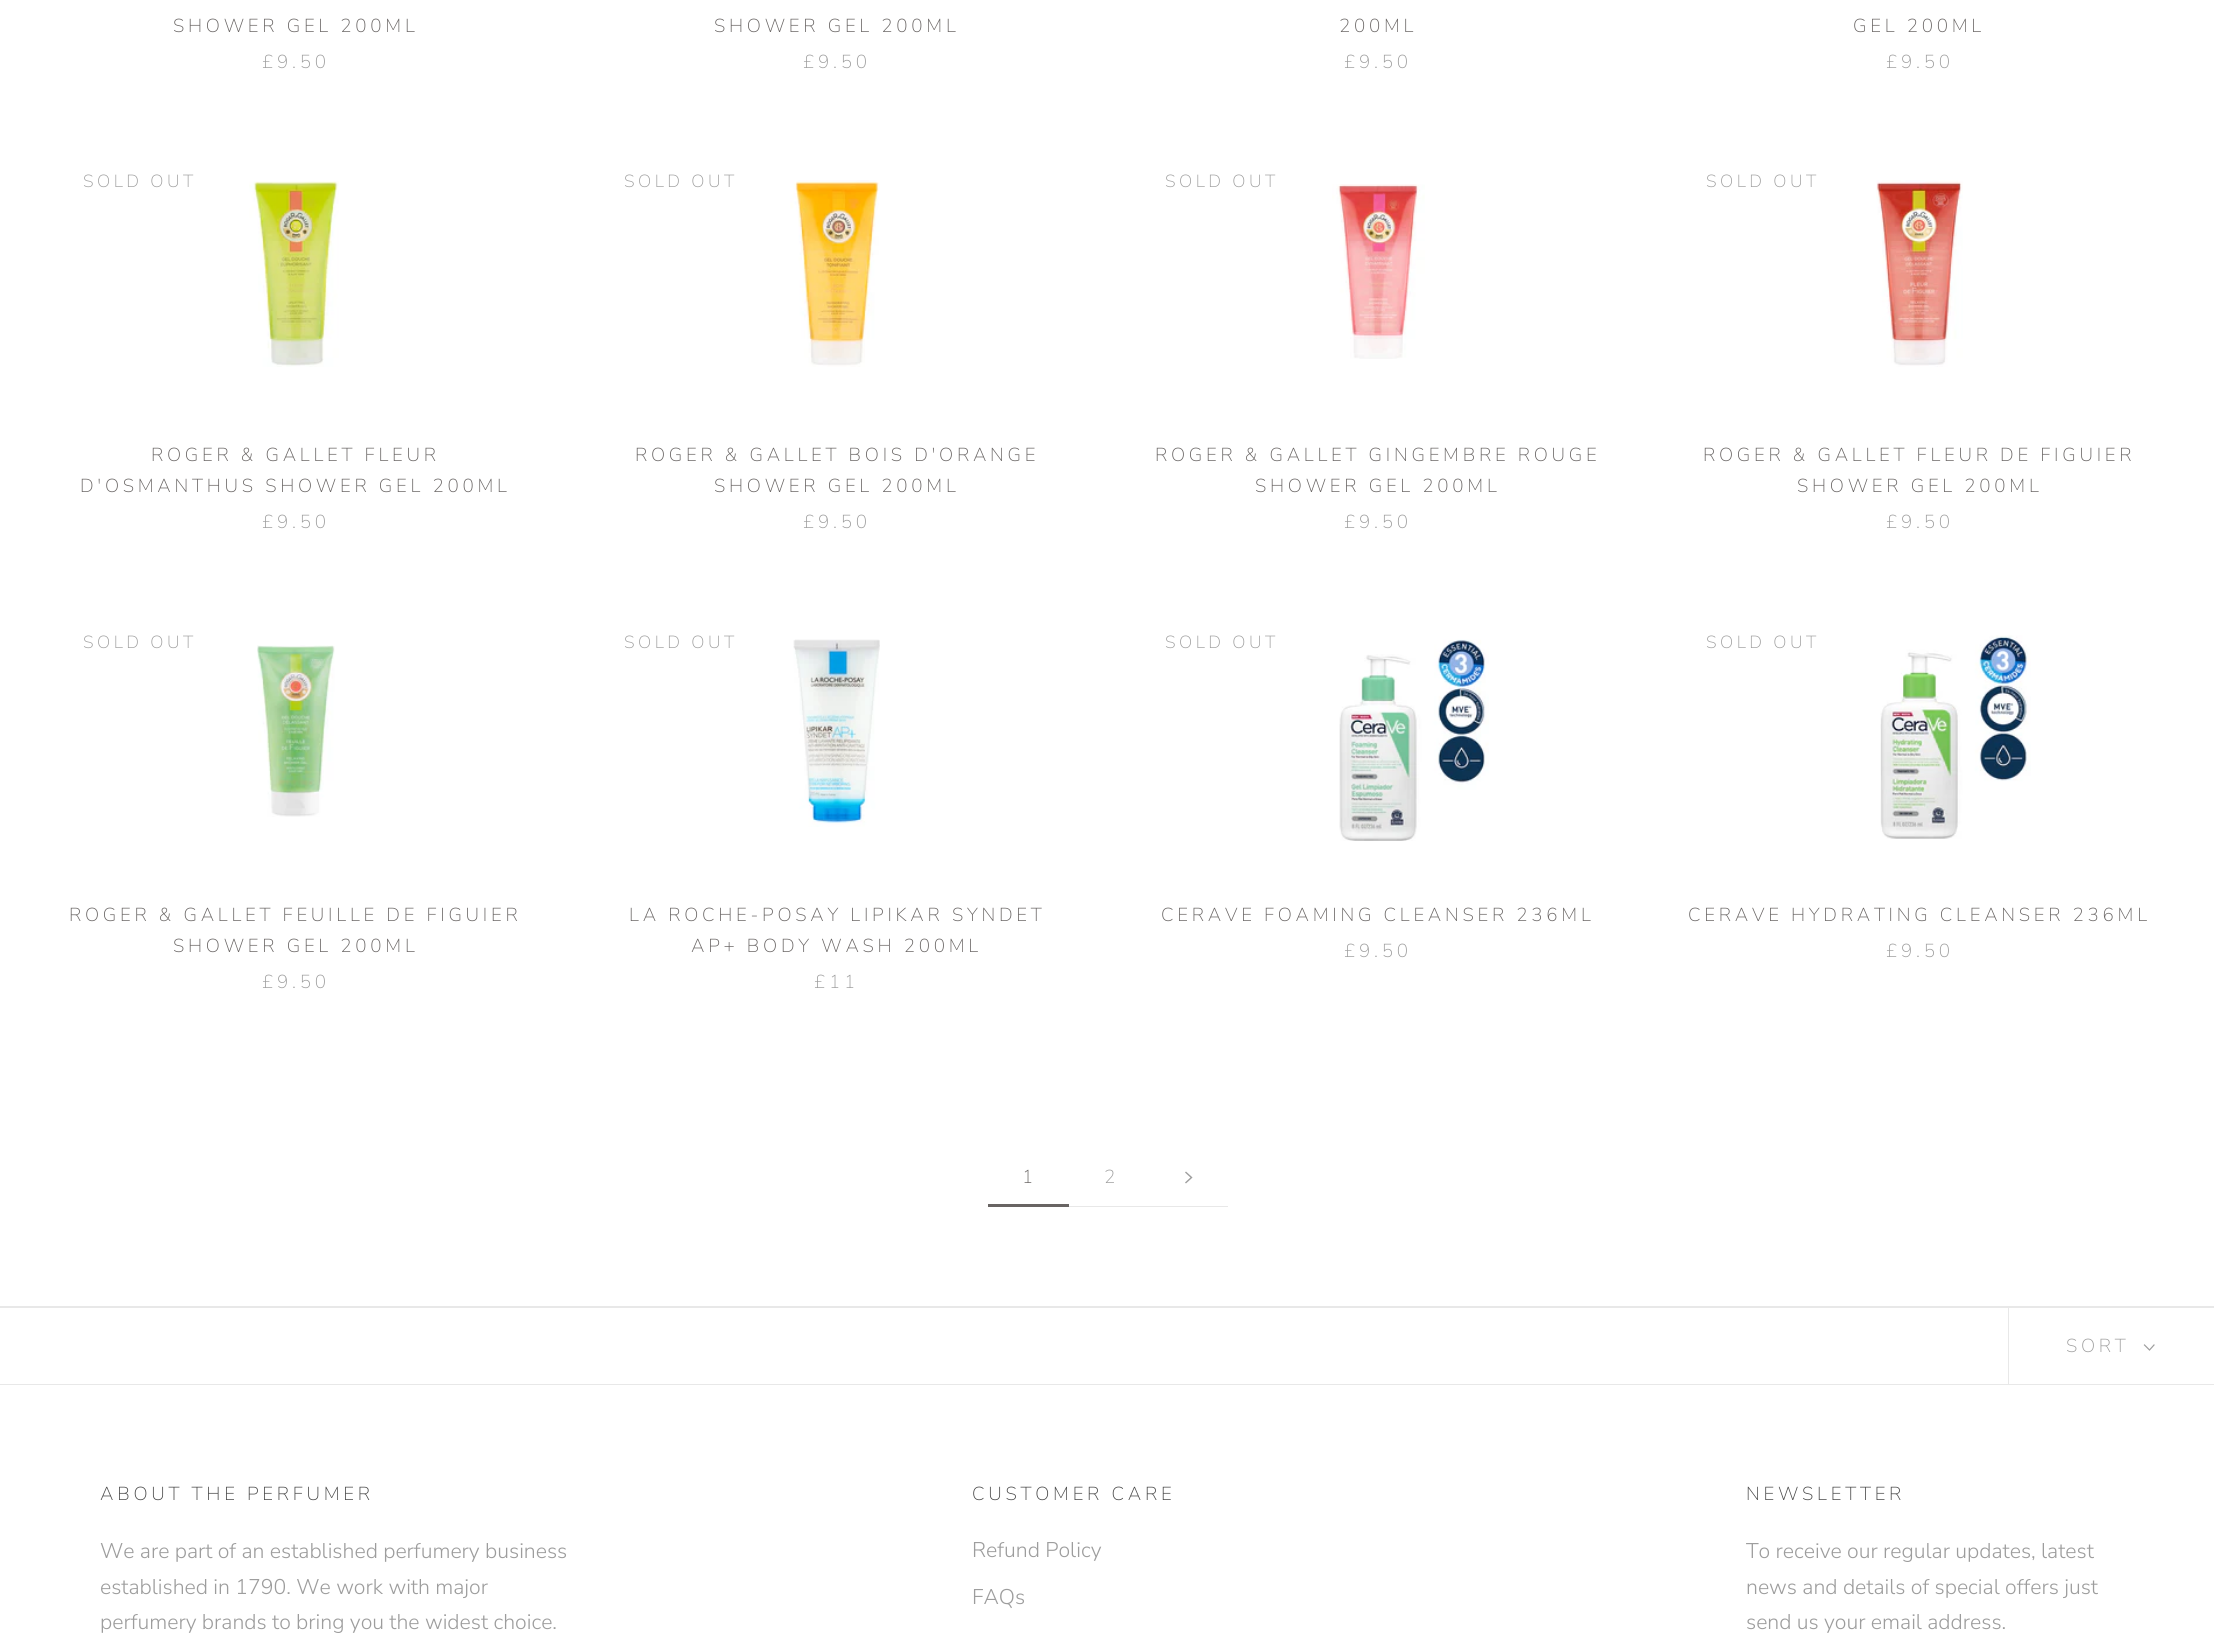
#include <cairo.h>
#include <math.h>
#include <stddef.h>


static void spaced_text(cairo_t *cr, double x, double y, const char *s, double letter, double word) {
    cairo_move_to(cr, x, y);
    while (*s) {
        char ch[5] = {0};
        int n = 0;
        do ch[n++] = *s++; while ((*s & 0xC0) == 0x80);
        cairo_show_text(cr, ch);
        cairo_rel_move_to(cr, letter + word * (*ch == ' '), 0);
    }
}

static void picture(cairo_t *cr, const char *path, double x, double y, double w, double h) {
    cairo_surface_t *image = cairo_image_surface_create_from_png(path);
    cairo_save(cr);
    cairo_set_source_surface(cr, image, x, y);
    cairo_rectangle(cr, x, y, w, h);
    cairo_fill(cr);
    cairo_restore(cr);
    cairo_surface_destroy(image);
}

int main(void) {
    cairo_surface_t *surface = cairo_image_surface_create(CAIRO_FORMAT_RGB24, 2214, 1642);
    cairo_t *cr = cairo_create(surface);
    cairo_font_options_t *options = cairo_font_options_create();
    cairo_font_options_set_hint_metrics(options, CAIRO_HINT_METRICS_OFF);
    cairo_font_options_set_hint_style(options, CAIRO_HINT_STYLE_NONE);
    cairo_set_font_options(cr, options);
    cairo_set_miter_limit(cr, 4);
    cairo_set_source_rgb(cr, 1, 1, 1);
    cairo_paint(cr);
    cairo_select_font_face(cr, "Nunito Sans ExtraLight", CAIRO_FONT_SLANT_NORMAL, CAIRO_FONT_WEIGHT_NORMAL);
    cairo_set_font_size(cr, 18.75);
    cairo_set_source_rgb(cr, 0.408, 0.392, 0.388);
    spaced_text(cr, 173, 32, "SHOWER GEL 200ML", 3.75, 0);
    cairo_set_source_rgb(cr, 0.616, 0.616, 0.616);
    spaced_text(cr, 262, 68, "£9.50", 3.75, 0);
    cairo_set_source_rgb(cr, 0.408, 0.392, 0.388);
    spaced_text(cr, 714, 32, "SHOWER GEL 200ML", 3.75, 0);
    cairo_set_source_rgb(cr, 0.616, 0.616, 0.616);
    spaced_text(cr, 803, 68, "£9.50", 3.75, 0);
    cairo_set_source_rgb(cr, 0.408, 0.392, 0.388);
    spaced_text(cr, 1339, 32, "200ML", 3.75, 0);
    cairo_set_source_rgb(cr, 0.616, 0.616, 0.616);
    spaced_text(cr, 1344, 68, "£9.50", 3.75, 0);
    cairo_set_source_rgb(cr, 0.408, 0.392, 0.388);
    spaced_text(cr, 1853, 32, "GEL 200ML", 3.75, 0);
    cairo_set_source_rgb(cr, 0.616, 0.616, 0.616);
    spaced_text(cr, 1886, 68, "£9.50", 3.75, 0);
    cairo_set_font_size(cr, 17.5);
    spaced_text(cr, 83, 187, "SOLD OUT", 3.5, 0);
    picture(cr, "img1.png", 249, 181, 90, 186);
    cairo_set_font_size(cr, 18.75);
    cairo_set_source_rgb(cr, 0.408, 0.392, 0.388);
    spaced_text(cr, 151, 461, "ROGER & GALLET FLEUR", 3.75, 0);
    spaced_text(cr, 80, 492, "D'OSMANTHUS SHOWER GEL 200ML", 3.75, 0);
    cairo_set_source_rgb(cr, 0.616, 0.616, 0.616);
    spaced_text(cr, 262, 528, "£9.50", 3.75, 0);
    cairo_set_font_size(cr, 17.5);
    spaced_text(cr, 624, 187, "SOLD OUT", 3.5, 0);
    picture(cr, "img2.png", 790, 180, 90, 187);
    cairo_set_font_size(cr, 18.75);
    cairo_set_source_rgb(cr, 0.408, 0.392, 0.388);
    spaced_text(cr, 635, 461, "ROGER & GALLET BOIS D'ORANGE", 3.75, 0);
    spaced_text(cr, 714, 492, "SHOWER GEL 200ML", 3.75, 0);
    cairo_set_source_rgb(cr, 0.616, 0.616, 0.616);
    spaced_text(cr, 803, 528, "£9.50", 3.75, 0);
    cairo_set_font_size(cr, 17.5);
    spaced_text(cr, 1165, 187, "SOLD OUT", 3.5, 0);
    picture(cr, "img3.png", 1332, 184, 93, 175);
    cairo_set_font_size(cr, 18.75);
    cairo_set_source_rgb(cr, 0.408, 0.392, 0.388);
    spaced_text(cr, 1155, 461, "ROGER & GALLET GINGEMBRE ROUGE", 3.75, 0);
    spaced_text(cr, 1255, 492, "SHOWER GEL 200ML", 3.75, 0);
    cairo_set_source_rgb(cr, 0.616, 0.616, 0.616);
    spaced_text(cr, 1344, 528, "£9.50", 3.75, 0);
    cairo_set_font_size(cr, 17.5);
    spaced_text(cr, 1706, 187, "SOLD OUT", 3.5, 0);
    picture(cr, "img4.png", 1876, 180, 87, 187);
    cairo_set_font_size(cr, 18.75);
    cairo_set_source_rgb(cr, 0.408, 0.392, 0.388);
    spaced_text(cr, 1703, 461, "ROGER & GALLET FLEUR DE FIGUIER", 3.75, 0);
    spaced_text(cr, 1797, 492, "SHOWER GEL 200ML", 3.75, 0);
    cairo_set_source_rgb(cr, 0.616, 0.616, 0.616);
    spaced_text(cr, 1886, 528, "£9.50", 3.75, 0);
    cairo_set_font_size(cr, 17.5);
    spaced_text(cr, 83, 648, "SOLD OUT", 3.5, 0);
    picture(cr, "img5.png", 257, 645, 78, 172);
    cairo_set_font_size(cr, 18.75);
    cairo_set_source_rgb(cr, 0.408, 0.392, 0.388);
    spaced_text(cr, 69, 921, "ROGER & GALLET FEUILLE DE FIGUIER", 3.75, 0);
    spaced_text(cr, 173, 952, "SHOWER GEL 200ML", 3.75, 0);
    cairo_set_source_rgb(cr, 0.616, 0.616, 0.616);
    spaced_text(cr, 262, 988, "£9.50", 3.75, 0);
    cairo_set_font_size(cr, 17.5);
    spaced_text(cr, 624, 648, "SOLD OUT", 3.5, 0);
    picture(cr, "img6.png", 793, 639, 87, 188);
    cairo_set_font_size(cr, 18.75);
    cairo_set_source_rgb(cr, 0.408, 0.392, 0.388);
    spaced_text(cr, 629, 921, "LA ROCHE-POSAY LIPIKAR SYNDET", 3.75, 0);
    spaced_text(cr, 691, 952, "AP+ BODY WASH 200ML", 3.75, 0);
    cairo_set_source_rgb(cr, 0.616, 0.616, 0.616);
    spaced_text(cr, 814, 988, "£11", 3.75, 0);
    cairo_set_font_size(cr, 17.5);
    spaced_text(cr, 1165, 648, "SOLD OUT", 3.5, 0);
    picture(cr, "img7.png", 1339, 639, 150, 202);
    cairo_set_font_size(cr, 18.75);
    cairo_set_source_rgb(cr, 0.408, 0.392, 0.388);
    spaced_text(cr, 1161, 921, "CERAVE FOAMING CLEANSER 236ML", 3.75, 0);
    cairo_set_source_rgb(cr, 0.616, 0.616, 0.616);
    spaced_text(cr, 1344, 957, "£9.50", 3.75, 0);
    cairo_set_font_size(cr, 17.5);
    spaced_text(cr, 1706, 648, "SOLD OUT", 3.5, 0);
    picture(cr, "img8.png", 1880, 635, 151, 204);
    cairo_set_font_size(cr, 18.75);
    cairo_set_source_rgb(cr, 0.408, 0.392, 0.388);
    spaced_text(cr, 1688, 921, "CERAVE HYDRATING CLEANSER 236ML", 3.75, 0);
    cairo_set_source_rgb(cr, 0.616, 0.616, 0.616);
    spaced_text(cr, 1886, 957, "£9.50", 3.75, 0);
    cairo_set_source_rgb(cr, 0.408, 0.392, 0.388);
    cairo_rectangle(cr, 988, 1204, 81, 3);
    cairo_fill(cr);
    cairo_move_to(cr, 1022, 1183);
    cairo_show_text(cr, "1");
    cairo_set_source_rgb(cr, 0.91, 0.91, 0.91);
    cairo_rectangle(cr, 1069, 1206, 159, 1);
    cairo_fill(cr);
    cairo_set_source_rgb(cr, 0.616, 0.616, 0.616);
    cairo_move_to(cr, 1104, 1183);
    cairo_show_text(cr, "2");
    cairo_new_path(cr);
    cairo_move_to(cr, 1186, 1172.5);
    cairo_line_to(cr, 1191.5, 1177.5);
    cairo_line_to(cr, 1186, 1182.5);
    cairo_set_line_width(cr, 1.4);
    cairo_set_line_cap(cr, CAIRO_LINE_CAP_SQUARE);
    cairo_stroke(cr);
    cairo_set_source_rgb(cr, 0.91, 0.91, 0.91);
    cairo_new_path(cr);
    cairo_move_to(cr, -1, 1306);
    cairo_line_to(cr, -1, 1383);
    cairo_line_to(cr, 0, 1383);
    cairo_line_to(cr, 0, 1308);
    cairo_line_to(cr, 2214, 1308);
    cairo_line_to(cr, 2214, 1306);
    cairo_close_path(cr);
    cairo_fill(cr);
    cairo_rectangle(cr, 2008, 1308, 1, 76);
    cairo_fill(cr);
    cairo_set_source_rgb(cr, 0.616, 0.616, 0.616);
    spaced_text(cr, 2066, 1352, "SORT", 3.75, 0);
    cairo_new_path(cr);
    cairo_move_to(cr, 2154, 1345);
    cairo_line_to(cr, 2149.5, 1350);
    cairo_line_to(cr, 2144.5, 1345);
    cairo_set_line_width(cr, 1.2);
    cairo_stroke(cr);
    cairo_set_source_rgb(cr, 0.91, 0.91, 0.91);
    cairo_rectangle(cr, 0, 1384, 2214, 1);
    cairo_fill(cr);
    cairo_set_source_rgb(cr, 0.271, 0.271, 0.271);
    spaced_text(cr, 100, 1500, "ABOUT THE PERFUMER", 3.75, 0);
    cairo_select_font_face(cr, "Nunito Sans Light", CAIRO_FONT_SLANT_NORMAL, CAIRO_FONT_WEIGHT_NORMAL);
    cairo_set_font_size(cr, 21.25);
    cairo_set_source_rgb(cr, 0.616, 0.616, 0.616);
    cairo_move_to(cr, 100, 1558);
    cairo_show_text(cr, "We are part of an established perfumery business");
    cairo_move_to(cr, 100, 1594);
    cairo_show_text(cr, "established in 1790. We work with major");
    cairo_move_to(cr, 100, 1629);
    cairo_show_text(cr, "perfumery brands to bring you the widest choice.");
    cairo_select_font_face(cr, "Nunito Sans ExtraLight", CAIRO_FONT_SLANT_NORMAL, CAIRO_FONT_WEIGHT_NORMAL);
    cairo_set_font_size(cr, 18.75);
    cairo_set_source_rgb(cr, 0.271, 0.271, 0.271);
    spaced_text(cr, 972, 1500, "CUSTOMER CARE", 3.75, 0);
    cairo_select_font_face(cr, "Nunito Sans Light", CAIRO_FONT_SLANT_NORMAL, CAIRO_FONT_WEIGHT_NORMAL);
    cairo_set_font_size(cr, 21.25);
    cairo_set_source_rgb(cr, 0.616, 0.616, 0.616);
    cairo_move_to(cr, 972, 1557);
    cairo_show_text(cr, "Refund Policy");
    cairo_move_to(cr, 972, 1604);
    cairo_show_text(cr, "FAQs");
    cairo_select_font_face(cr, "Nunito Sans ExtraLight", CAIRO_FONT_SLANT_NORMAL, CAIRO_FONT_WEIGHT_NORMAL);
    cairo_set_font_size(cr, 18.75);
    cairo_set_source_rgb(cr, 0.271, 0.271, 0.271);
    spaced_text(cr, 1746, 1500, "NEWSLETTER", 3.75, 0);
    cairo_select_font_face(cr, "Nunito Sans Light", CAIRO_FONT_SLANT_NORMAL, CAIRO_FONT_WEIGHT_NORMAL);
    cairo_set_font_size(cr, 21.25);
    cairo_set_source_rgb(cr, 0.616, 0.616, 0.616);
    cairo_move_to(cr, 1746, 1558);
    cairo_show_text(cr, "To receive our regular updates, latest");
    cairo_move_to(cr, 1746, 1594);
    cairo_show_text(cr, "news and details of special offers just");
    cairo_move_to(cr, 1746, 1629);
    cairo_show_text(cr, "send us your email address.");
    cairo_surface_write_to_png(surface, "page.png");
    cairo_font_options_destroy(options);
    cairo_destroy(cr);
    cairo_surface_destroy(surface);
    return 0;
}
